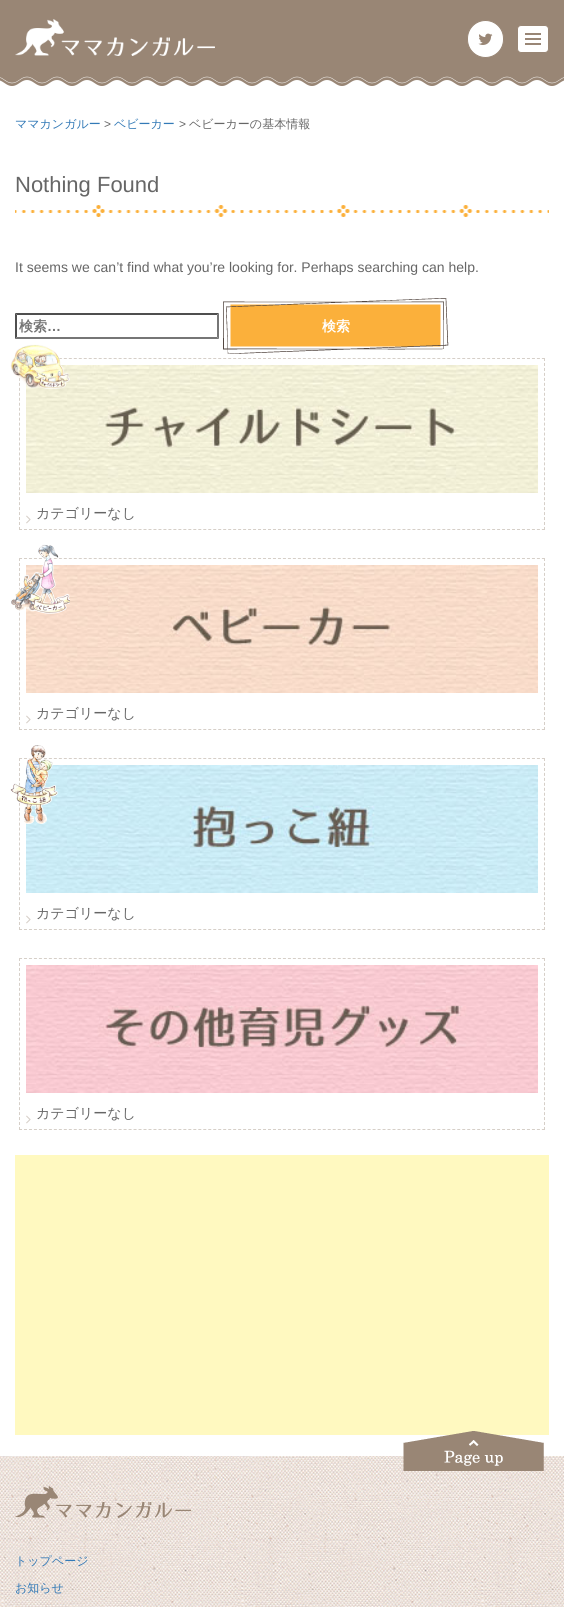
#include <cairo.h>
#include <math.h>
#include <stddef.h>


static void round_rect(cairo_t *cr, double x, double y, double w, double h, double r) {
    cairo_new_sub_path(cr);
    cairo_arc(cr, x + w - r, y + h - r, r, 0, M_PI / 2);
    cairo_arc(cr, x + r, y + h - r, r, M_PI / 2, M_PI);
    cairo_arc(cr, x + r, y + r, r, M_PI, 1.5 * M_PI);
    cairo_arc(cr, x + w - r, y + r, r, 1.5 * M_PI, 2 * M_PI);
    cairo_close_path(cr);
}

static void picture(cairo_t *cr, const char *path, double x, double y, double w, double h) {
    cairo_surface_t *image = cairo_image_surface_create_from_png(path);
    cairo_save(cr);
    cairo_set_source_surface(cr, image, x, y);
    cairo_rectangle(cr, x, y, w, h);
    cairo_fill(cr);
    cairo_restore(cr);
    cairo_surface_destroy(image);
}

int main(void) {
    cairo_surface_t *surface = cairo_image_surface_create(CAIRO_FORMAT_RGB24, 564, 1607);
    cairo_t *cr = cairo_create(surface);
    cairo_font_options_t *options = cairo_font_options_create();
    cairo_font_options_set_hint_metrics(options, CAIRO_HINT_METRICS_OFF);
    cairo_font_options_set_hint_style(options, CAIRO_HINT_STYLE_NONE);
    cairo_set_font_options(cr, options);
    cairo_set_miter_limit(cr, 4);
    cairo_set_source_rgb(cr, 1, 1, 1);
    cairo_paint(cr);
    picture(cr, "img1.png", 0, 0, 564, 86);
    cairo_set_source_rgb(cr, 1, 1, 1);
    round_rect(cr, 517.5, 25.5, 31, 27, 3.5);
    cairo_fill_preserve(cr);
    cairo_set_source_rgb(cr, 0.6, 0.525, 0.459);
    cairo_set_line_width(cr, 1);
    cairo_stroke(cr);
    cairo_rectangle(cr, 525, 33, 16, 2);
    cairo_fill(cr);
    cairo_rectangle(cr, 525, 38, 16, 2);
    cairo_fill(cr);
    cairo_rectangle(cr, 525, 43, 16, 2);
    cairo_fill(cr);
    picture(cr, "img2.png", 15, 19, 200, 37);
    cairo_set_source_rgb(cr, 1, 1, 1);
    round_rect(cr, 467.5, 20.5, 36, 37, 18);
    cairo_fill_preserve(cr);
    cairo_set_source_rgb(cr, 0.6, 0.525, 0.459);
    cairo_stroke(cr);
    picture(cr, "img3.png", 478, 33, 15, 12);
    cairo_select_font_face(cr, "WenQuanYi Zen Hei Medium", CAIRO_FONT_SLANT_NORMAL, CAIRO_FONT_WEIGHT_NORMAL);
    cairo_set_font_size(cr, 12);
    cairo_set_source_rgb(cr, 0.2, 0.478, 0.718);
    cairo_move_to(cr, 15, 128);
    cairo_show_text(cr, "ママカンガルー");
    cairo_select_font_face(cr, "Liberation Sans", CAIRO_FONT_SLANT_NORMAL, CAIRO_FONT_WEIGHT_NORMAL);
    cairo_set_source_rgb(cr, 0.4, 0.4, 0.4);
    cairo_move_to(cr, 104, 128);
    cairo_show_text(cr, ">");
    cairo_select_font_face(cr, "WenQuanYi Zen Hei Medium", CAIRO_FONT_SLANT_NORMAL, CAIRO_FONT_WEIGHT_NORMAL);
    cairo_set_source_rgb(cr, 0.2, 0.478, 0.718);
    cairo_move_to(cr, 114, 128);
    cairo_show_text(cr, "ベビーカー");
    cairo_select_font_face(cr, "Liberation Sans", CAIRO_FONT_SLANT_NORMAL, CAIRO_FONT_WEIGHT_NORMAL);
    cairo_set_source_rgb(cr, 0.4, 0.4, 0.4);
    cairo_move_to(cr, 179, 128);
    cairo_show_text(cr, ">");
    cairo_select_font_face(cr, "WenQuanYi Zen Hei Medium", CAIRO_FONT_SLANT_NORMAL, CAIRO_FONT_WEIGHT_NORMAL);
    cairo_move_to(cr, 189, 128);
    cairo_show_text(cr, "ベビーカーの基本情報");
    picture(cr, "img4.png", 15, 205, 534, 12);
    cairo_select_font_face(cr, "Liberation Sans", CAIRO_FONT_SLANT_NORMAL, CAIRO_FONT_WEIGHT_NORMAL);
    cairo_set_font_size(cr, 22);
    cairo_move_to(cr, 15, 192);
    cairo_show_text(cr, "Nothing Found");
    cairo_set_font_size(cr, 14);
    cairo_move_to(cr, 15, 272);
    cairo_show_text(cr, "It seems we can’t find what you’re looking for. Perhaps searching can help.");
    cairo_set_source_rgb(cr, 0.31, 0.31, 0.31);
    cairo_new_path(cr);
    cairo_move_to(cr, 15, 313);
    cairo_line_to(cr, 219, 313);
    cairo_line_to(cr, 217, 315);
    cairo_line_to(cr, 17, 315);
    cairo_close_path(cr);
    cairo_fill(cr);
    cairo_set_source_rgb(cr, 0.463, 0.463, 0.463);
    cairo_new_path(cr);
    cairo_move_to(cr, 219, 313);
    cairo_line_to(cr, 219, 339);
    cairo_line_to(cr, 217, 337);
    cairo_line_to(cr, 217, 315);
    cairo_close_path(cr);
    cairo_fill(cr);
    cairo_new_path(cr);
    cairo_move_to(cr, 219, 339);
    cairo_line_to(cr, 15, 339);
    cairo_line_to(cr, 17, 337);
    cairo_line_to(cr, 217, 337);
    cairo_close_path(cr);
    cairo_fill(cr);
    cairo_set_source_rgb(cr, 0.31, 0.31, 0.31);
    cairo_new_path(cr);
    cairo_move_to(cr, 15, 339);
    cairo_line_to(cr, 15, 313);
    cairo_line_to(cr, 17, 315);
    cairo_line_to(cr, 17, 337);
    cairo_close_path(cr);
    cairo_fill(cr);
    cairo_select_font_face(cr, "WenQuanYi Zen Hei", CAIRO_FONT_SLANT_NORMAL, CAIRO_FONT_WEIGHT_BOLD);
    cairo_set_source_rgb(cr, 0.459, 0.459, 0.459);
    cairo_move_to(cr, 19, 331);
    cairo_show_text(cr, "検索");
    cairo_select_font_face(cr, "Liberation Sans", CAIRO_FONT_SLANT_NORMAL, CAIRO_FONT_WEIGHT_BOLD);
    cairo_move_to(cr, 47, 331);
    cairo_show_text(cr, "…");
    picture(cr, "img5.png", 223, 298, 226, 56);
    cairo_select_font_face(cr, "WenQuanYi Zen Hei", CAIRO_FONT_SLANT_NORMAL, CAIRO_FONT_WEIGHT_BOLD);
    cairo_set_source_rgb(cr, 1, 1, 1);
    cairo_move_to(cr, 322, 331);
    cairo_show_text(cr, "検索");
    cairo_new_path(cr);
    cairo_move_to(cr, 19, 358.5);
    cairo_line_to(cr, 545, 358.5);
    cairo_set_source_rgb(cr, 0.839, 0.812, 0.784);
    cairo_set_dash(cr, (double[]){3, 1.98}, 2, 0);
    cairo_stroke(cr);
    cairo_new_path(cr);
    cairo_move_to(cr, 544.5, 358);
    cairo_line_to(cr, 544.5, 530);
    cairo_set_dash(cr, (double[]){3, 1.97}, 2, 0);
    cairo_stroke(cr);
    cairo_new_path(cr);
    cairo_move_to(cr, 19, 529.5);
    cairo_line_to(cr, 545, 529.5);
    cairo_set_dash(cr, (double[]){3, 1.98}, 2, 0);
    cairo_stroke(cr);
    cairo_new_path(cr);
    cairo_move_to(cr, 19.5, 358);
    cairo_line_to(cr, 19.5, 530);
    cairo_set_dash(cr, (double[]){3, 1.97}, 2, 0);
    cairo_stroke(cr);
    picture(cr, "img7.png", 26, 365, 512, 128);
    picture(cr, "img6.png", 10, 344, 60, 45);
    picture(cr, "img8.png", 26, 515, 5, 9);
    cairo_select_font_face(cr, "WenQuanYi Zen Hei Medium", CAIRO_FONT_SLANT_NORMAL, CAIRO_FONT_WEIGHT_NORMAL);
    cairo_set_source_rgb(cr, 0.4, 0.4, 0.4);
    cairo_move_to(cr, 36, 518);
    cairo_show_text(cr, "カテゴリーなし");
    cairo_new_path(cr);
    cairo_move_to(cr, 19, 558.5);
    cairo_line_to(cr, 545, 558.5);
    cairo_set_source_rgb(cr, 0.839, 0.812, 0.784);
    cairo_set_dash(cr, (double[]){3, 1.98}, 2, 0);
    cairo_stroke(cr);
    cairo_new_path(cr);
    cairo_move_to(cr, 544.5, 558);
    cairo_line_to(cr, 544.5, 730);
    cairo_set_dash(cr, (double[]){3, 1.97}, 2, 0);
    cairo_stroke(cr);
    cairo_new_path(cr);
    cairo_move_to(cr, 19, 729.5);
    cairo_line_to(cr, 545, 729.5);
    cairo_set_dash(cr, (double[]){3, 1.98}, 2, 0);
    cairo_stroke(cr);
    cairo_new_path(cr);
    cairo_move_to(cr, 19.5, 558);
    cairo_line_to(cr, 19.5, 730);
    cairo_set_dash(cr, (double[]){3, 1.97}, 2, 0);
    cairo_stroke(cr);
    picture(cr, "img10.png", 26, 565, 512, 128);
    picture(cr, "img9.png", 11, 544, 59, 70);
    picture(cr, "img8.png", 26, 715, 5, 9);
    cairo_set_source_rgb(cr, 0.4, 0.4, 0.4);
    cairo_move_to(cr, 36, 718);
    cairo_show_text(cr, "カテゴリーなし");
    cairo_new_path(cr);
    cairo_move_to(cr, 19, 758.5);
    cairo_line_to(cr, 545, 758.5);
    cairo_set_source_rgb(cr, 0.839, 0.812, 0.784);
    cairo_set_dash(cr, (double[]){3, 1.98}, 2, 0);
    cairo_stroke(cr);
    cairo_new_path(cr);
    cairo_move_to(cr, 544.5, 758);
    cairo_line_to(cr, 544.5, 930);
    cairo_set_dash(cr, (double[]){3, 1.97}, 2, 0);
    cairo_stroke(cr);
    cairo_new_path(cr);
    cairo_move_to(cr, 19, 929.5);
    cairo_line_to(cr, 545, 929.5);
    cairo_set_dash(cr, (double[]){3, 1.98}, 2, 0);
    cairo_stroke(cr);
    cairo_new_path(cr);
    cairo_move_to(cr, 19.5, 758);
    cairo_line_to(cr, 19.5, 930);
    cairo_set_dash(cr, (double[]){3, 1.97}, 2, 0);
    cairo_stroke(cr);
    picture(cr, "img12.png", 26, 765, 512, 128);
    picture(cr, "img11.png", 10, 745, 48, 79);
    picture(cr, "img8.png", 26, 915, 5, 9);
    cairo_set_source_rgb(cr, 0.4, 0.4, 0.4);
    cairo_move_to(cr, 36, 918);
    cairo_show_text(cr, "カテゴリーなし");
    cairo_new_path(cr);
    cairo_move_to(cr, 19, 958.5);
    cairo_line_to(cr, 545, 958.5);
    cairo_set_source_rgb(cr, 0.839, 0.812, 0.784);
    cairo_set_dash(cr, (double[]){3, 1.98}, 2, 0);
    cairo_stroke(cr);
    cairo_new_path(cr);
    cairo_move_to(cr, 544.5, 958);
    cairo_line_to(cr, 544.5, 1130);
    cairo_set_dash(cr, (double[]){3, 1.97}, 2, 0);
    cairo_stroke(cr);
    cairo_new_path(cr);
    cairo_move_to(cr, 19, 1129.5);
    cairo_line_to(cr, 545, 1129.5);
    cairo_set_dash(cr, (double[]){3, 1.98}, 2, 0);
    cairo_stroke(cr);
    cairo_new_path(cr);
    cairo_move_to(cr, 19.5, 958);
    cairo_line_to(cr, 19.5, 1130);
    cairo_set_dash(cr, (double[]){3, 1.97}, 2, 0);
    cairo_stroke(cr);
    picture(cr, "img13.png", 26, 965, 512, 128);
    picture(cr, "img8.png", 26, 1115, 5, 9);
    cairo_set_source_rgb(cr, 0.4, 0.4, 0.4);
    cairo_move_to(cr, 36, 1118);
    cairo_show_text(cr, "カテゴリーなし");
    cairo_set_source_rgb(cr, 1, 0.976, 0.753);
    cairo_rectangle(cr, 15, 1155, 534, 280);
    cairo_fill(cr);
    picture(cr, "img15.png", 0, 1456, 564, 151);
    picture(cr, "img14.png", 403, 1431, 141, 40);
    picture(cr, "img16.png", 15, 1486, 176, 32);
    cairo_set_font_size(cr, 12);
    cairo_set_source_rgb(cr, 0.2, 0.478, 0.718);
    cairo_move_to(cr, 15, 1565);
    cairo_show_text(cr, "トップページ");
    cairo_move_to(cr, 15, 1592);
    cairo_show_text(cr, "お知らせ");
    cairo_surface_write_to_png(surface, "page.png");
    cairo_font_options_destroy(options);
    cairo_destroy(cr);
    cairo_surface_destroy(surface);
    return 0;
}
